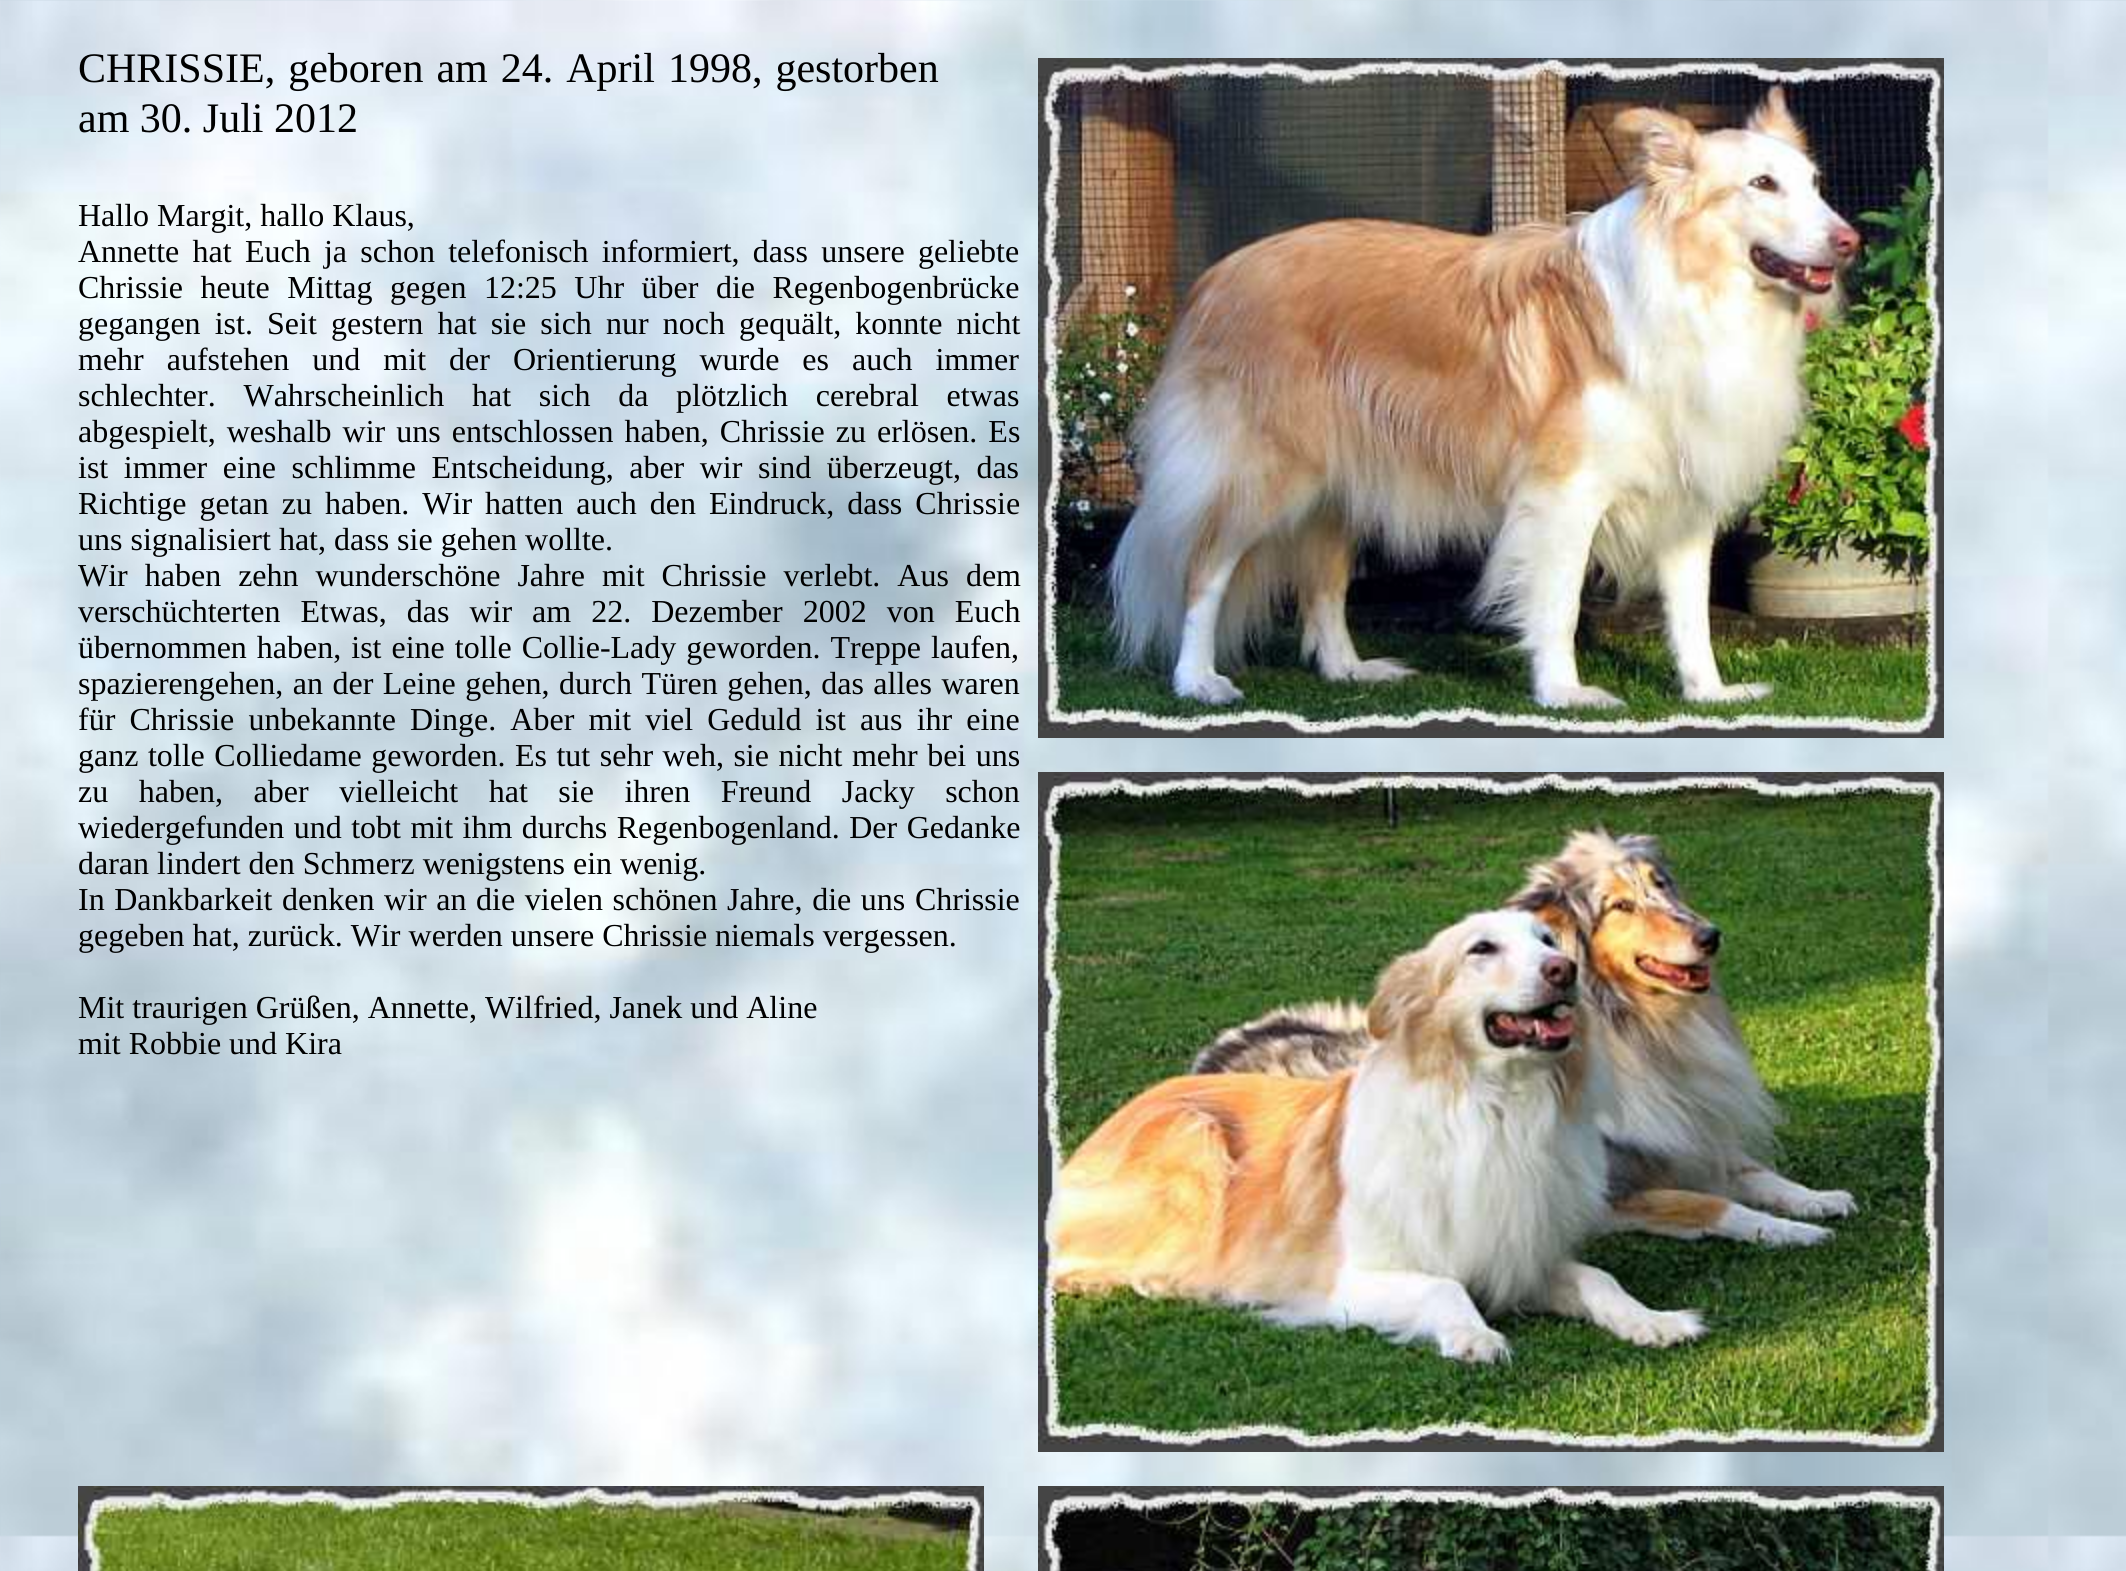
#include <cairo.h>
#include <math.h>
#include <stddef.h>


static void spaced_text(cairo_t *cr, double x, double y, const char *s, double letter, double word) {
    cairo_move_to(cr, x, y);
    while (*s) {
        char ch[5] = {0};
        int n = 0;
        do ch[n++] = *s++; while ((*s & 0xC0) == 0x80);
        cairo_show_text(cr, ch);
        cairo_rel_move_to(cr, letter + word * (*ch == ' '), 0);
    }
}

static void picture(cairo_t *cr, const char *path, double x, double y, double w, double h) {
    cairo_surface_t *image = cairo_image_surface_create_from_png(path);
    cairo_save(cr);
    cairo_set_source_surface(cr, image, x, y);
    cairo_rectangle(cr, x, y, w, h);
    cairo_fill(cr);
    cairo_restore(cr);
    cairo_surface_destroy(image);
}

int main(void) {
    cairo_surface_t *surface = cairo_image_surface_create(CAIRO_FORMAT_RGB24, 2126, 1571);
    cairo_t *cr = cairo_create(surface);
    cairo_font_options_t *options = cairo_font_options_create();
    cairo_font_options_set_hint_metrics(options, CAIRO_HINT_METRICS_OFF);
    cairo_font_options_set_hint_style(options, CAIRO_HINT_STYLE_NONE);
    cairo_set_font_options(cr, options);
    cairo_set_miter_limit(cr, 4);
    cairo_set_source_rgb(cr, 1, 1, 1);
    cairo_paint(cr);
    picture(cr, "img1.png", 0, 0, 2126, 1571);
    cairo_select_font_face(cr, "Liberation Serif", CAIRO_FONT_SLANT_NORMAL, CAIRO_FONT_WEIGHT_NORMAL);
    cairo_set_font_size(cr, 42);
    cairo_set_source_rgb(cr, 0, 0, 0);
    spaced_text(cr, 78, 82, "CHRISSIE, geboren am 24. April 1998, gestorben", 0, 2.5);
    cairo_move_to(cr, 78, 132);
    cairo_show_text(cr, "am 30. Juli 2012");
    picture(cr, "img2.png", 1038, 58, 906, 680);
    cairo_set_font_size(cr, 32);
    cairo_move_to(cr, 78, 226);
    cairo_show_text(cr, "Hallo Margit, hallo Klaus,");
    spaced_text(cr, 78, 262, "Annette hat Euch ja schon telefonisch informiert, dass unsere geliebte", 0, 5.25);
    spaced_text(cr, 78, 298, "Chrissie heute Mittag gegen 12:25 Uhr über die Regenbogenbrücke", 0, 9.5);
    spaced_text(cr, 78, 334, "gegangen ist. Seit gestern hat sie sich nur noch gequält, konnte nicht", 0, 6.1);
    spaced_text(cr, 78, 370, "mehr aufstehen und mit der Orientierung wurde es auch immer", 0, 15);
    spaced_text(cr, 78, 406, "schlechter. Wahrscheinlich hat sich da plötzlich cerebral etwas", 0, 19.75);
    spaced_text(cr, 78, 442, "abgespielt, weshalb wir uns entschlossen haben, Chrissie zu erlösen. Es", 0, 3);
    spaced_text(cr, 78, 478, "ist immer eine schlimme Entscheidung, aber wir sind überzeugt, das", 0, 7.5);
    spaced_text(cr, 78, 514, "Richtige getan zu haben. Wir hatten auch den Eindruck, dass Chrissie", 0, 5);
    cairo_move_to(cr, 78, 550);
    cairo_show_text(cr, "uns signalisiert hat, dass sie gehen wollte.");
    spaced_text(cr, 78, 586, "Wir haben zehn wunderschöne Jahre mit Chrissie verlebt. Aus dem", 0, 9);
    spaced_text(cr, 78, 622, "verschüchterten Etwas, das wir am 22. Dezember 2002 von Euch", 0, 12);
    spaced_text(cr, 78, 658, "übernommen haben, ist eine tolle Collie-Lady geworden. Treppe laufen,", 0, 2);
    spaced_text(cr, 78, 694, "spazierengehen, an der Leine gehen, durch Türen gehen, das alles waren", 0, 1.5);
    spaced_text(cr, 78, 730, "für Chrissie unbekannte Dinge. Aber mit viel Geduld ist aus ihr eine", 0, 6.1);
    spaced_text(cr, 78, 766, "ganz tolle Colliedame geworden. Es tut sehr weh, sie nicht mehr bei uns", 0, 1.5);
    spaced_text(cr, 78, 802, "zu haben, aber vielleicht hat sie ihren Freund Jacky schon", 0, 22.5);
    spaced_text(cr, 78, 838, "wiedergefunden und tobt mit ihm durchs Regenbogenland. Der Gedanke", 0, 1.5);
    cairo_move_to(cr, 78, 874);
    cairo_show_text(cr, "daran lindert den Schmerz wenigstens ein wenig.");
    spaced_text(cr, 78, 910, "In Dankbarkeit denken wir an die vielen schönen Jahre, die uns Chrissie", 0, 1.6);
    cairo_move_to(cr, 78, 946);
    cairo_show_text(cr, "gegeben hat, zurück. Wir werden unsere Chrissie niemals vergessen.");
    cairo_move_to(cr, 78, 1018);
    cairo_show_text(cr, "Mit traurigen Grüßen, Annette, Wilfried, Janek und Aline");
    cairo_move_to(cr, 78, 1054);
    cairo_show_text(cr, "mit Robbie und Kira");
    picture(cr, "img3.png", 1038, 772, 906, 680);
    picture(cr, "img4.png", 78, 1486, 906, 85);
    picture(cr, "img5.png", 1038, 1486, 906, 85);
    cairo_surface_write_to_png(surface, "page.png");
    cairo_font_options_destroy(options);
    cairo_destroy(cr);
    cairo_surface_destroy(surface);
    return 0;
}
